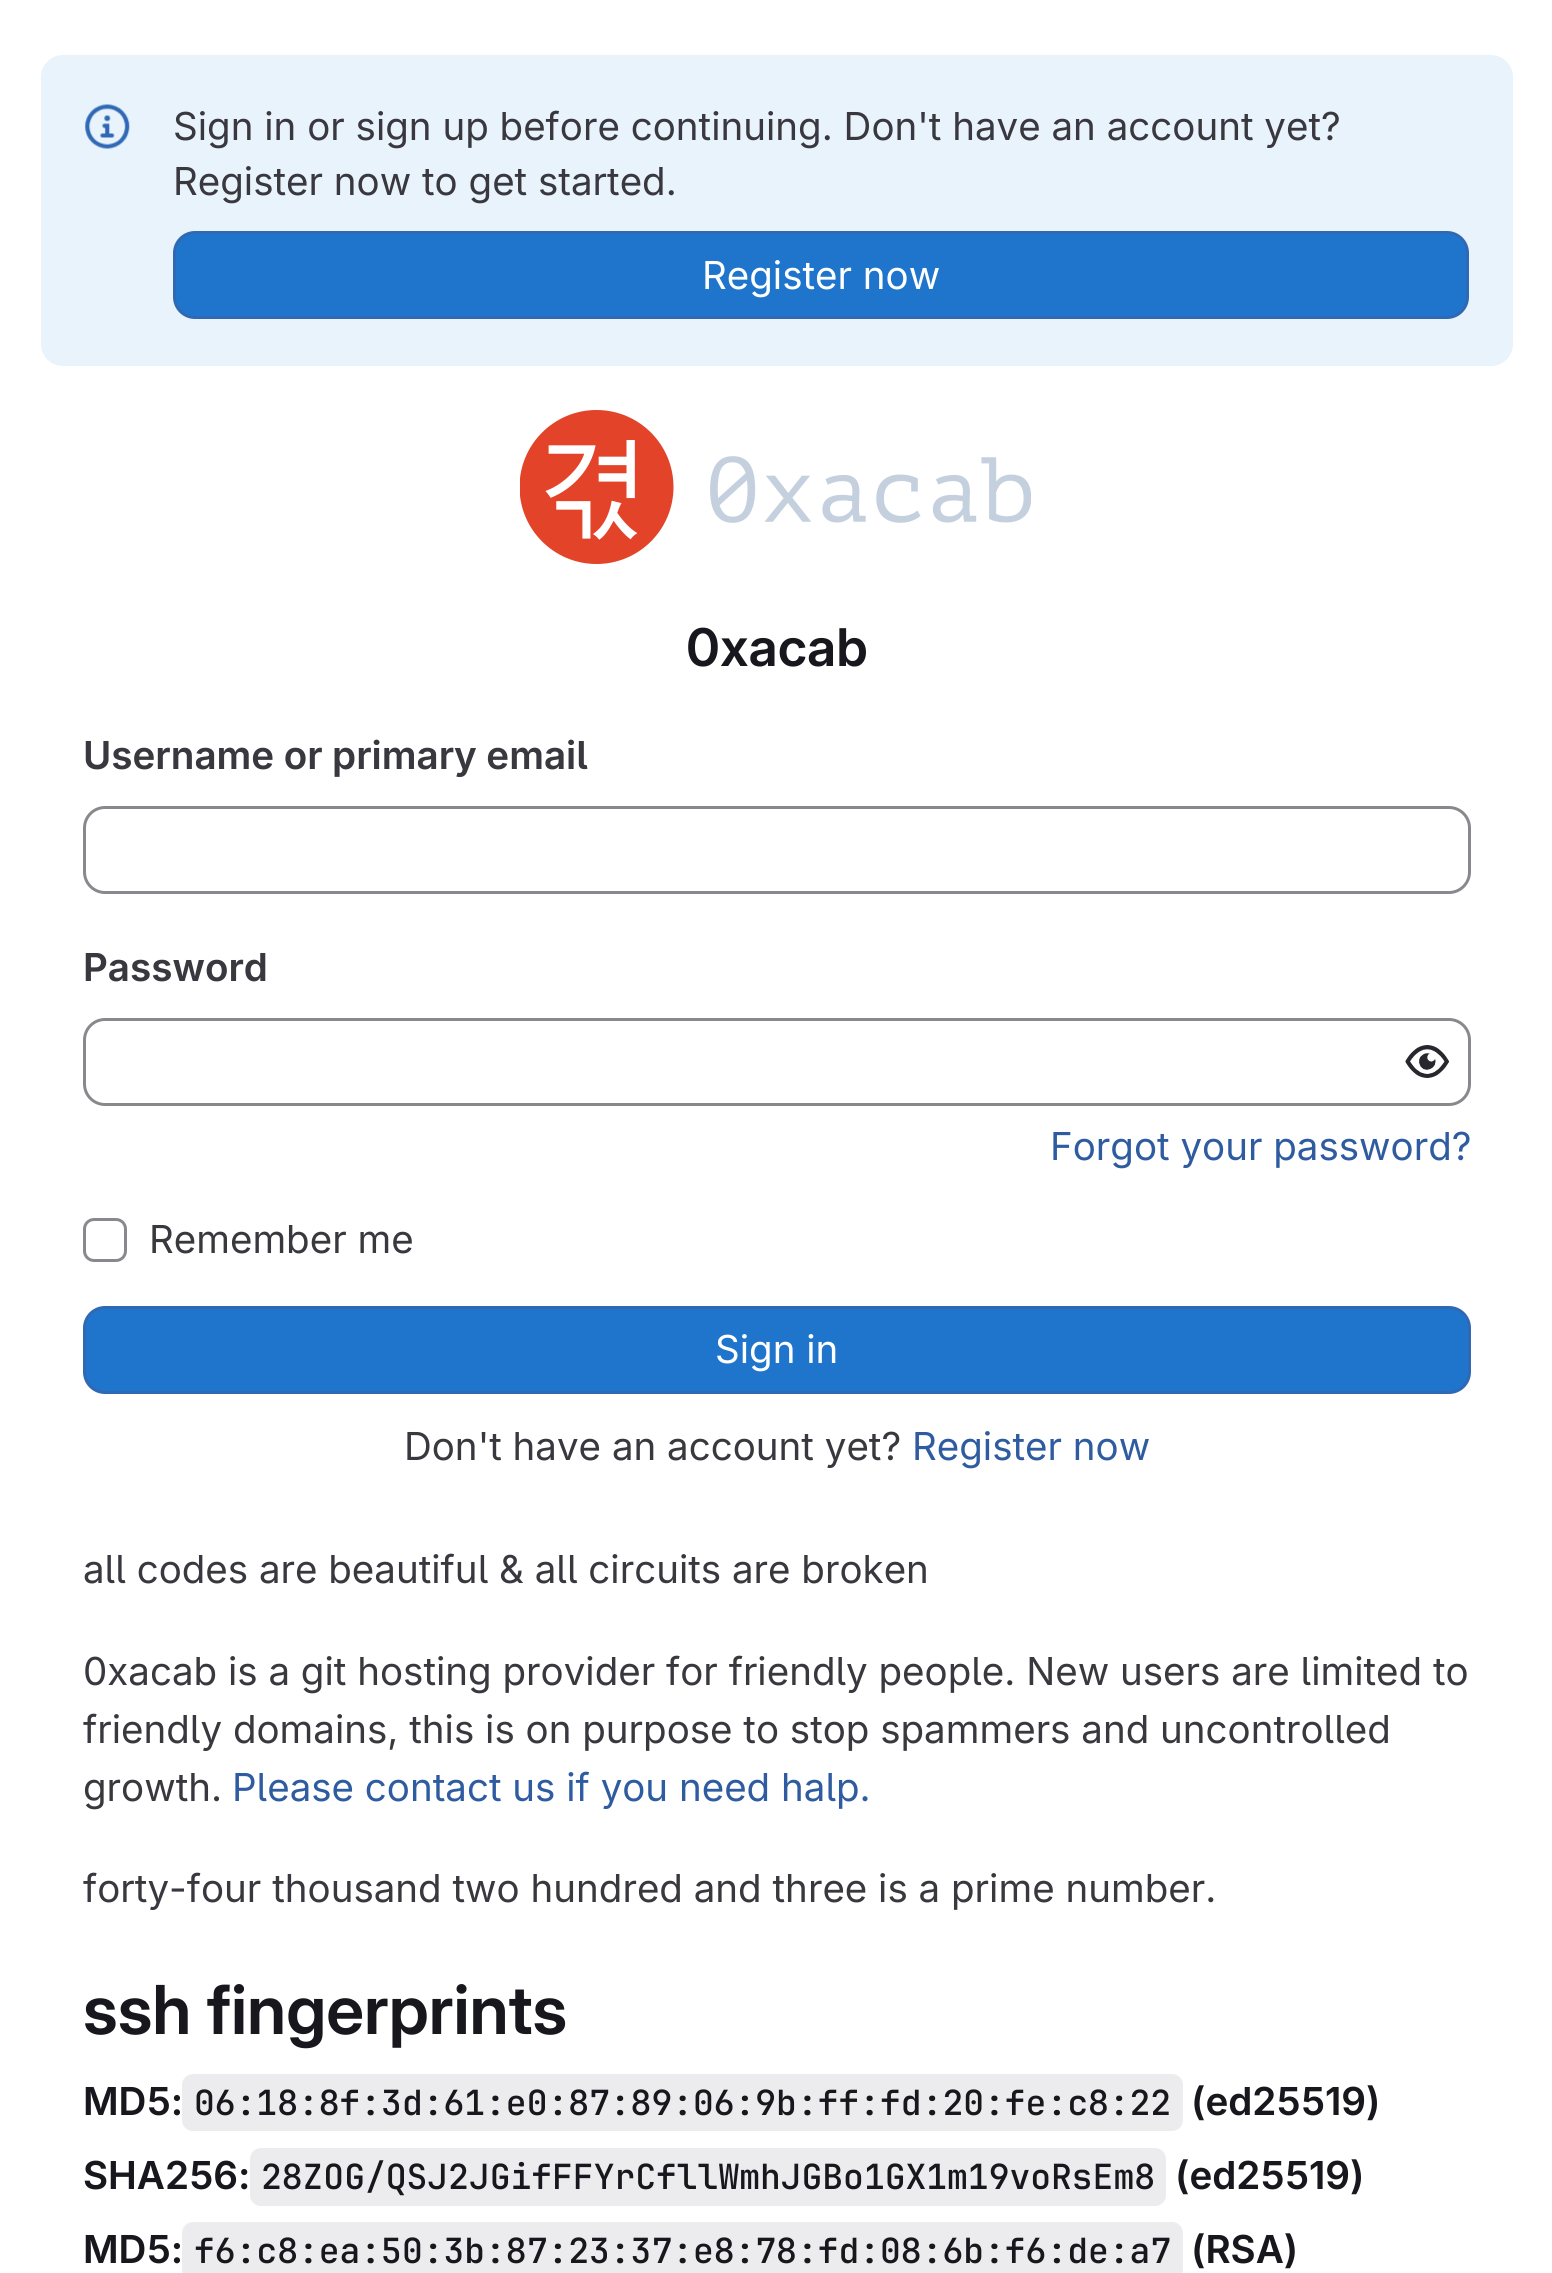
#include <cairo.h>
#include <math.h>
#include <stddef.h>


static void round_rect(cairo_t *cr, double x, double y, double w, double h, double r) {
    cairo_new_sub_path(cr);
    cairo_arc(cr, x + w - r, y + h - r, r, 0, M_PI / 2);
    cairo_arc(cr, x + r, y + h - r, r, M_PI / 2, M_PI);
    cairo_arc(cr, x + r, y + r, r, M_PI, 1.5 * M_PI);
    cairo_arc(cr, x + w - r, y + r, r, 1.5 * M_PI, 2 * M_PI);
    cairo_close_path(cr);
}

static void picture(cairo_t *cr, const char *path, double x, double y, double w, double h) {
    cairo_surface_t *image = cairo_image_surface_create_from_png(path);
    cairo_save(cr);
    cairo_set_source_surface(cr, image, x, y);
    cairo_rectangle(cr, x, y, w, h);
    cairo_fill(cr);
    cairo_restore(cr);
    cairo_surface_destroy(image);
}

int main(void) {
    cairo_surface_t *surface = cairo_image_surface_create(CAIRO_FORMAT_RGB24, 1552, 2273);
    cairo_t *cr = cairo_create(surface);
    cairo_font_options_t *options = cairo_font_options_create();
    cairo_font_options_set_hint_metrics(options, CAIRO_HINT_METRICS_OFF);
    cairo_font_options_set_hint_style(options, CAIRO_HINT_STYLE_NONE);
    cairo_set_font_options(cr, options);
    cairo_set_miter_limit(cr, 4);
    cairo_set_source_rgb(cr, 1, 1, 1);
    cairo_paint(cr);
    cairo_set_source_rgb(cr, 0.914, 0.953, 0.988);
    round_rect(cr, 41, 55, 1472, 311, 22);
    cairo_fill(cr);
    picture(cr, "img1.png", 85, 104, 45, 45);
    cairo_select_font_face(cr, "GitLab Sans", CAIRO_FONT_SLANT_NORMAL, CAIRO_FONT_WEIGHT_NORMAL);
    cairo_set_font_size(cr, 38.5);
    cairo_set_source_rgb(cr, 0.227, 0.22, 0.247);
    cairo_move_to(cr, 173, 140);
    cairo_show_text(cr, "Sign in or sign up before continuing. Don't have an account yet?");
    cairo_move_to(cr, 173, 195);
    cairo_show_text(cr, "Register now to get started.");
    cairo_set_source_rgb(cr, 0.122, 0.459, 0.796);
    round_rect(cr, 174.5, 232.5, 1293, 85, 20.5);
    cairo_fill_preserve(cr);
    cairo_set_source_rgb(cr, 0.184, 0.408, 0.706);
    cairo_set_line_width(cr, 3);
    cairo_stroke(cr);
    cairo_set_source_rgb(cr, 1, 1, 1);
    cairo_move_to(cr, 702, 289);
    cairo_show_text(cr, "Register now");
    picture(cr, "img2.png", 520, 410, 511, 154);
    cairo_select_font_face(cr, "GitLab Sans SemiBold", CAIRO_FONT_SLANT_NORMAL, CAIRO_FONT_WEIGHT_NORMAL);
    cairo_set_font_size(cr, 52);
    cairo_set_source_rgb(cr, 0.094, 0.09, 0.114);
    cairo_move_to(cr, 686, 666);
    cairo_show_text(cr, "0xacab");
    cairo_select_font_face(cr, "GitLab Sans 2 SemiBold", CAIRO_FONT_SLANT_NORMAL, CAIRO_FONT_WEIGHT_NORMAL);
    cairo_set_font_size(cr, 38.5);
    cairo_set_source_rgb(cr, 0.227, 0.22, 0.247);
    cairo_move_to(cr, 83, 769);
    cairo_show_text(cr, "Username or primary email");
    round_rect(cr, 84.5, 807.5, 1385, 85, 20.5);
    cairo_set_source_rgb(cr, 0.537, 0.533, 0.553);
    cairo_stroke(cr);
    cairo_set_source_rgb(cr, 0.227, 0.22, 0.247);
    cairo_move_to(cr, 83, 981);
    cairo_show_text(cr, "Password");
    round_rect(cr, 84.5, 1019.5, 1385, 85, 20.5);
    cairo_set_source_rgb(cr, 0.537, 0.533, 0.553);
    cairo_stroke(cr);
    picture(cr, "img3.png", 1405, 1045, 45, 33);
    cairo_select_font_face(cr, "GitLab Sans", CAIRO_FONT_SLANT_NORMAL, CAIRO_FONT_WEIGHT_NORMAL);
    cairo_set_source_rgb(cr, 0.184, 0.361, 0.627);
    cairo_move_to(cr, 1050, 1160);
    cairo_show_text(cr, "Forgot your password?");
    round_rect(cr, 84.5, 1219.5, 41, 41, 9.5);
    cairo_set_source_rgb(cr, 0.537, 0.533, 0.553);
    cairo_stroke(cr);
    cairo_set_source_rgb(cr, 0.227, 0.22, 0.247);
    cairo_move_to(cr, 149, 1253);
    cairo_show_text(cr, "Remember me");
    cairo_set_source_rgb(cr, 0.122, 0.459, 0.796);
    round_rect(cr, 84.5, 1307.5, 1385, 85, 20.5);
    cairo_fill_preserve(cr);
    cairo_set_source_rgb(cr, 0.184, 0.408, 0.706);
    cairo_stroke(cr);
    cairo_set_source_rgb(cr, 1, 1, 1);
    cairo_move_to(cr, 715, 1363);
    cairo_show_text(cr, "Sign in");
    cairo_set_source_rgb(cr, 0.227, 0.22, 0.247);
    cairo_move_to(cr, 404, 1460);
    cairo_show_text(cr, "Don't have an account yet?");
    cairo_set_source_rgb(cr, 0.184, 0.361, 0.627);
    cairo_move_to(cr, 912, 1460);
    cairo_show_text(cr, "Register now");
    cairo_set_source_rgb(cr, 0.227, 0.22, 0.247);
    cairo_move_to(cr, 83, 1583);
    cairo_show_text(cr, "all codes are beautiful & all circuits are broken");
    cairo_move_to(cr, 83, 1685);
    cairo_show_text(cr, "0xacab is a git hosting provider for friendly people. New users are limited to");
    cairo_move_to(cr, 83, 1743);
    cairo_show_text(cr, "friendly domains, this is on purpose to stop spammers and uncontrolled");
    cairo_move_to(cr, 83, 1801);
    cairo_show_text(cr, "growth.");
    cairo_set_source_rgb(cr, 0.184, 0.361, 0.627);
    cairo_move_to(cr, 232, 1801);
    cairo_show_text(cr, "Please contact us if you need halp.");
    cairo_set_source_rgb(cr, 0.227, 0.22, 0.247);
    cairo_move_to(cr, 83, 1902);
    cairo_show_text(cr, "forty-four thousand two hundred and three is a prime number.");
    cairo_select_font_face(cr, "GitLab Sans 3 SemiBold", CAIRO_FONT_SLANT_NORMAL, CAIRO_FONT_WEIGHT_NORMAL);
    cairo_set_font_size(cr, 67.5);
    cairo_set_source_rgb(cr, 0.094, 0.09, 0.114);
    cairo_move_to(cr, 83, 2034);
    cairo_show_text(cr, "ssh fingerprints");
    cairo_select_font_face(cr, "GitLab Sans 2 SemiBold", CAIRO_FONT_SLANT_NORMAL, CAIRO_FONT_WEIGHT_NORMAL);
    cairo_set_font_size(cr, 38.5);
    cairo_move_to(cr, 83, 2115);
    cairo_show_text(cr, "MD5:");
    cairo_set_source_rgb(cr, 0.925, 0.925, 0.937);
    round_rect(cr, 182, 2074, 1001, 57, 11);
    cairo_fill(cr);
    cairo_select_font_face(cr, "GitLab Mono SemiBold", CAIRO_FONT_SLANT_NORMAL, CAIRO_FONT_WEIGHT_NORMAL);
    cairo_set_font_size(cr, 34.65);
    cairo_set_source_rgb(cr, 0.094, 0.09, 0.114);
    cairo_move_to(cr, 194, 2115);
    cairo_show_text(cr, "06:18:8f:3d:61:e0:87:89:06:9b:ff:fd:20:fe:c8:22");
    cairo_select_font_face(cr, "GitLab Sans 2 SemiBold", CAIRO_FONT_SLANT_NORMAL, CAIRO_FONT_WEIGHT_NORMAL);
    cairo_set_font_size(cr, 38.5);
    cairo_move_to(cr, 1191, 2115);
    cairo_show_text(cr, "(ed25519)");
    cairo_move_to(cr, 83, 2189);
    cairo_show_text(cr, "SHA256:");
    cairo_set_source_rgb(cr, 0.925, 0.925, 0.937);
    round_rect(cr, 250, 2148, 916, 58, 11);
    cairo_fill(cr);
    cairo_select_font_face(cr, "GitLab Mono SemiBold", CAIRO_FONT_SLANT_NORMAL, CAIRO_FONT_WEIGHT_NORMAL);
    cairo_set_font_size(cr, 34.65);
    cairo_set_source_rgb(cr, 0.094, 0.09, 0.114);
    cairo_move_to(cr, 261, 2189);
    cairo_show_text(cr, "28ZOG/QSJ2JGifFFYrCfllWmhJGBo1GX1m19voRsEm8");
    cairo_select_font_face(cr, "GitLab Sans 2 SemiBold", CAIRO_FONT_SLANT_NORMAL, CAIRO_FONT_WEIGHT_NORMAL);
    cairo_set_font_size(cr, 38.5);
    cairo_move_to(cr, 1175, 2189);
    cairo_show_text(cr, "(ed25519)");
    cairo_move_to(cr, 83, 2263);
    cairo_show_text(cr, "MD5:");
    cairo_set_source_rgb(cr, 0.925, 0.925, 0.937);
    round_rect(cr, 182, 2222, 1001, 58, 11);
    cairo_fill(cr);
    cairo_select_font_face(cr, "GitLab Mono SemiBold", CAIRO_FONT_SLANT_NORMAL, CAIRO_FONT_WEIGHT_NORMAL);
    cairo_set_font_size(cr, 34.65);
    cairo_set_source_rgb(cr, 0.094, 0.09, 0.114);
    cairo_move_to(cr, 194, 2263);
    cairo_show_text(cr, "f6:c8:ea:50:3b:87:23:37:e8:78:fd:08:6b:f6:de:a7");
    cairo_select_font_face(cr, "GitLab Sans 2 SemiBold", CAIRO_FONT_SLANT_NORMAL, CAIRO_FONT_WEIGHT_NORMAL);
    cairo_set_font_size(cr, 38.5);
    cairo_move_to(cr, 1191, 2263);
    cairo_show_text(cr, "(RSA)");
    cairo_surface_write_to_png(surface, "page.png");
    cairo_font_options_destroy(options);
    cairo_destroy(cr);
    cairo_surface_destroy(surface);
    return 0;
}
